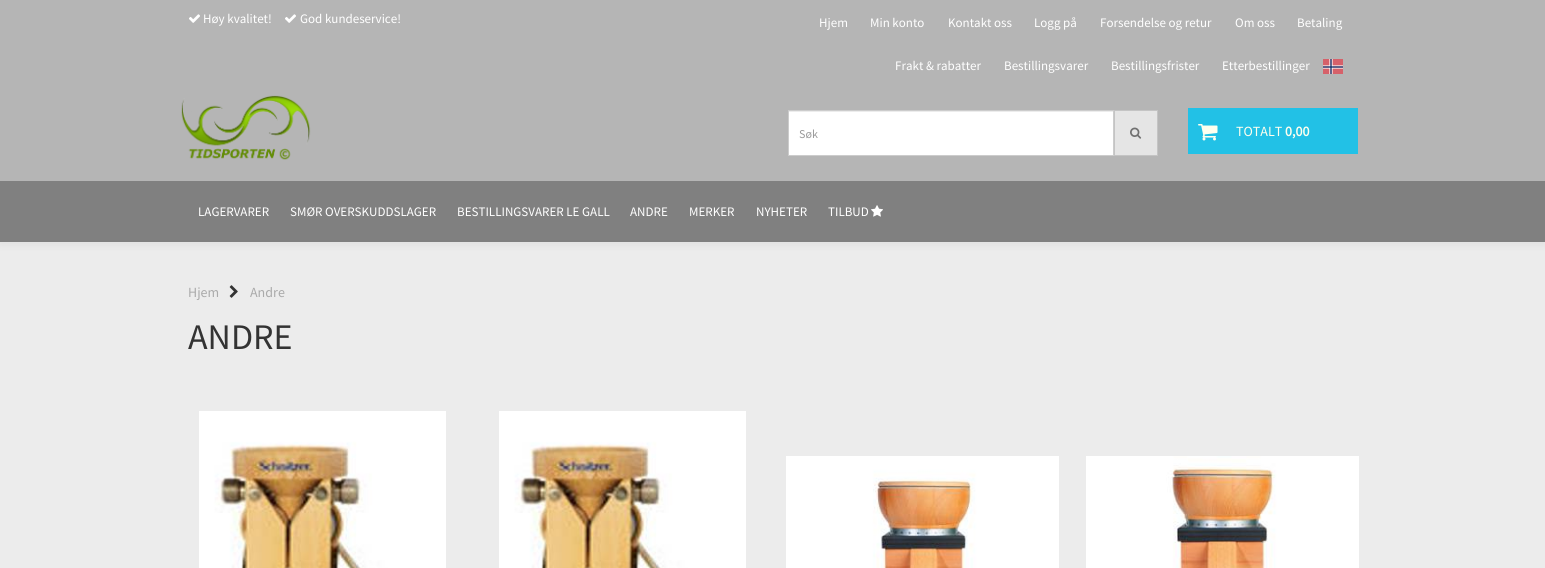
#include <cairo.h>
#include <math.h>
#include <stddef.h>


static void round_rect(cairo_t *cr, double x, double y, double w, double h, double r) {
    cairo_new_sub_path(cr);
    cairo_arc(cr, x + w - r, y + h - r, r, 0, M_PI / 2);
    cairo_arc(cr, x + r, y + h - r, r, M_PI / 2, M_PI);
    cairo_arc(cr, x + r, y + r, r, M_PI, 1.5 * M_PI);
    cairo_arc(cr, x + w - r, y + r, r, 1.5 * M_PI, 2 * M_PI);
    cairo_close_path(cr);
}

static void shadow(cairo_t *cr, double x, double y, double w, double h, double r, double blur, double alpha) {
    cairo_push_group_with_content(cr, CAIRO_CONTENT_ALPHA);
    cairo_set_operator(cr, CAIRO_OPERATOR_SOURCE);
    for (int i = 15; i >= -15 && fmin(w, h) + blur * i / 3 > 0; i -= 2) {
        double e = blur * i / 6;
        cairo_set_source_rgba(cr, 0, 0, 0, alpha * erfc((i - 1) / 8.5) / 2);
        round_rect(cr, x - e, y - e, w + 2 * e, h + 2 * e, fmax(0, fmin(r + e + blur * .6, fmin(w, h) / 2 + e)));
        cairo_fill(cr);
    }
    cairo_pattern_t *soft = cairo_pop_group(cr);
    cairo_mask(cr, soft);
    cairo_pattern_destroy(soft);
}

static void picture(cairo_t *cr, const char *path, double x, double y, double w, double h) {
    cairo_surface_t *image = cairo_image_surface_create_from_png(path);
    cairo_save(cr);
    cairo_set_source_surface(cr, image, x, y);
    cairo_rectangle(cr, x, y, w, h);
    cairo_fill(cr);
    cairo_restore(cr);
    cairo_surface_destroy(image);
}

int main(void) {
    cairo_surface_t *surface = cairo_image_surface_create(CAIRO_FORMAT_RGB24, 1545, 568);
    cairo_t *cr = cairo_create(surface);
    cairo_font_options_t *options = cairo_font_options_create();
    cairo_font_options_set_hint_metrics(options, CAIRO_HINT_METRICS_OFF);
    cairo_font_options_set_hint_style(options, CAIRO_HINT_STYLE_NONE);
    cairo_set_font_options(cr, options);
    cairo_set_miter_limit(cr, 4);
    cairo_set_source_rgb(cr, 0.925, 0.925, 0.925);
    cairo_paint(cr);
    cairo_set_source_rgb(cr, 0, 0, 0);
    shadow(cr, -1, -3, 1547, 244, 0, 5.5, 0.1);
    cairo_set_source_rgb(cr, 0.71, 0.71, 0.71);
    cairo_rectangle(cr, 0, 0, 1545, 181);
    cairo_fill(cr);
    picture(cr, "img1.png", 189, 14, 11, 9);
    cairo_select_font_face(cr, "Source Sans Pro", CAIRO_FONT_SLANT_NORMAL, CAIRO_FONT_WEIGHT_NORMAL);
    cairo_set_font_size(cr, 13);
    cairo_set_source_rgb(cr, 1, 1, 1);
    cairo_move_to(cr, 203, 23);
    cairo_show_text(cr, "Høy kvalitet!");
    picture(cr, "img1.png", 285, 14, 11, 9);
    cairo_move_to(cr, 300, 23);
    cairo_show_text(cr, "God kundeservice!");
    cairo_move_to(cr, 819, 27);
    cairo_show_text(cr, "Hjem");
    cairo_move_to(cr, 870, 27);
    cairo_show_text(cr, "Min konto");
    cairo_move_to(cr, 948, 27);
    cairo_show_text(cr, "Kontakt oss");
    cairo_move_to(cr, 1034, 27);
    cairo_show_text(cr, "Logg på");
    cairo_move_to(cr, 1100, 27);
    cairo_show_text(cr, "Forsendelse og retur");
    cairo_move_to(cr, 1235, 27);
    cairo_show_text(cr, "Om oss");
    cairo_move_to(cr, 1297, 27);
    cairo_show_text(cr, "Betaling");
    cairo_move_to(cr, 895, 70);
    cairo_show_text(cr, "Frakt & rabatter");
    cairo_move_to(cr, 1004, 70);
    cairo_show_text(cr, "Bestillingsvarer");
    cairo_move_to(cr, 1111, 70);
    cairo_show_text(cr, "Bestillingsfrister");
    cairo_move_to(cr, 1222, 70);
    cairo_show_text(cr, "Etterbestillinger");
    picture(cr, "img2.png", 1323, 59, 20, 15);
    picture(cr, "img3.png", 181, 95, 130, 65);
    cairo_rectangle(cr, 789, 112, 324, 43);
    cairo_fill(cr);
    cairo_set_source_rgb(cr, 0.925, 0.925, 0.925);
    cairo_rectangle(cr, 789, 111, 324, 1);
    cairo_fill(cr);
    cairo_rectangle(cr, 788.5, 110.5, 325, 45);
    cairo_set_source_rgb(cr, 0.8, 0.8, 0.8);
    cairo_set_line_width(cr, 1);
    cairo_stroke(cr);
    cairo_set_font_size(cr, 12);
    cairo_set_source_rgb(cr, 0.6, 0.6, 0.6);
    cairo_move_to(cr, 799, 138);
    cairo_show_text(cr, "Søk");
    cairo_set_source_rgb(cr, 0.898, 0.898, 0.898);
    cairo_rectangle(cr, 1114.5, 110.5, 43, 45);
    cairo_fill_preserve(cr);
    cairo_set_source_rgb(cr, 0.769, 0.769, 0.769);
    cairo_stroke(cr);
    picture(cr, "img4.png", 1130, 127, 12, 12);
    cairo_set_source_rgb(cr, 0.133, 0.757, 0.902);
    cairo_rectangle(cr, 1188, 108, 170, 46);
    cairo_fill(cr);
    picture(cr, "img5.png", 1198, 124, 20, 17);
    cairo_set_font_size(cr, 14);
    cairo_set_source_rgb(cr, 1, 1, 0.933);
    cairo_move_to(cr, 1236, 136);
    cairo_show_text(cr, "TOTALT");
    cairo_select_font_face(cr, "Source Sans Pro", CAIRO_FONT_SLANT_NORMAL, CAIRO_FONT_WEIGHT_BOLD);
    cairo_move_to(cr, 1285, 136);
    cairo_show_text(cr, "0,00");
    cairo_set_source_rgb(cr, 0.502, 0.502, 0.502);
    cairo_rectangle(cr, 0, 181, 1545, 61);
    cairo_fill(cr);
    cairo_select_font_face(cr, "Source Sans Pro", CAIRO_FONT_SLANT_NORMAL, CAIRO_FONT_WEIGHT_NORMAL);
    cairo_set_font_size(cr, 13);
    cairo_set_source_rgb(cr, 1, 1, 1);
    cairo_move_to(cr, 198, 216);
    cairo_show_text(cr, "LAGERVARER");
    cairo_move_to(cr, 290, 216);
    cairo_show_text(cr, "SMØR OVERSKUDDSLAGER");
    cairo_move_to(cr, 457, 216);
    cairo_show_text(cr, "BESTILLINGSVARER LE GALL");
    cairo_move_to(cr, 630, 216);
    cairo_show_text(cr, "ANDRE");
    cairo_move_to(cr, 689, 216);
    cairo_show_text(cr, "MERKER");
    cairo_move_to(cr, 756, 216);
    cairo_show_text(cr, "NYHETER");
    cairo_move_to(cr, 828, 216);
    cairo_show_text(cr, "TILBUD");
    picture(cr, "img6.png", 871, 205, 12, 12);
    cairo_set_font_size(cr, 14);
    cairo_set_source_rgb(cr, 0.667, 0.667, 0.667);
    cairo_move_to(cr, 188, 297);
    cairo_show_text(cr, "Hjem");
    picture(cr, "img7.png", 229, 285, 9, 13);
    cairo_move_to(cr, 250, 297);
    cairo_show_text(cr, "Andre");
    cairo_set_font_size(cr, 36);
    cairo_set_source_rgb(cr, 0.2, 0.2, 0.2);
    cairo_move_to(cr, 188, 349);
    cairo_show_text(cr, "ANDRE");
    picture(cr, "img8.png", 199, 411, 247, 157);
    picture(cr, "img8.png", 499, 411, 247, 157);
    picture(cr, "img9.png", 786, 456, 273, 112);
    picture(cr, "img10.png", 1086, 456, 273, 112);
    cairo_surface_write_to_png(surface, "page.png");
    cairo_font_options_destroy(options);
    cairo_destroy(cr);
    cairo_surface_destroy(surface);
    return 0;
}
